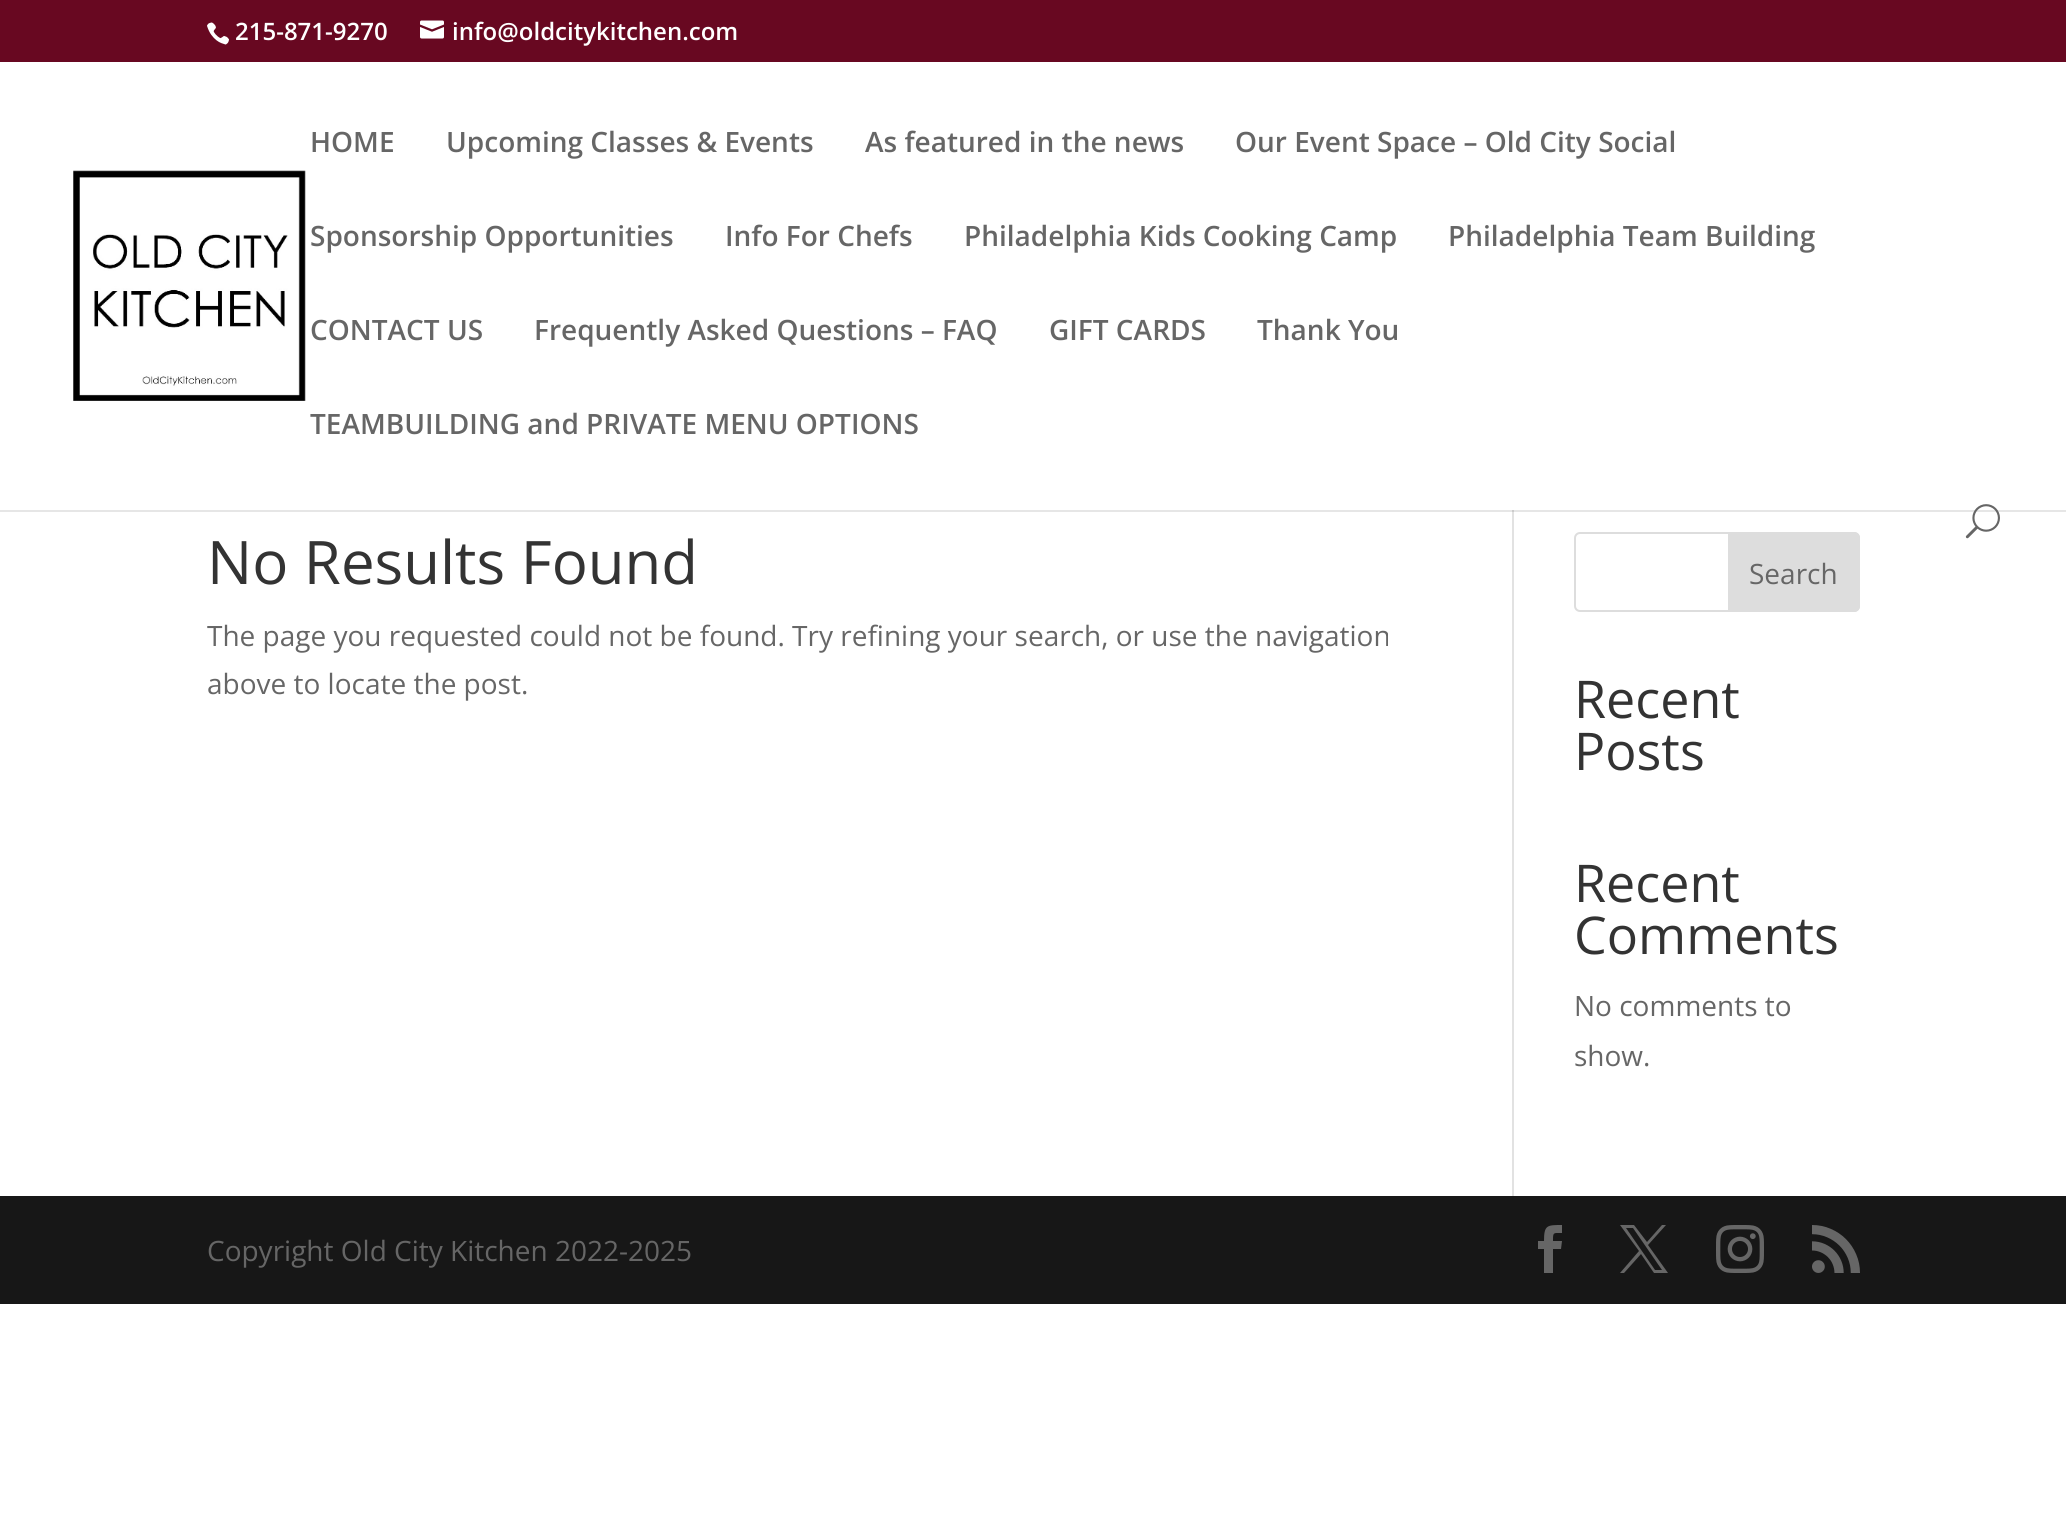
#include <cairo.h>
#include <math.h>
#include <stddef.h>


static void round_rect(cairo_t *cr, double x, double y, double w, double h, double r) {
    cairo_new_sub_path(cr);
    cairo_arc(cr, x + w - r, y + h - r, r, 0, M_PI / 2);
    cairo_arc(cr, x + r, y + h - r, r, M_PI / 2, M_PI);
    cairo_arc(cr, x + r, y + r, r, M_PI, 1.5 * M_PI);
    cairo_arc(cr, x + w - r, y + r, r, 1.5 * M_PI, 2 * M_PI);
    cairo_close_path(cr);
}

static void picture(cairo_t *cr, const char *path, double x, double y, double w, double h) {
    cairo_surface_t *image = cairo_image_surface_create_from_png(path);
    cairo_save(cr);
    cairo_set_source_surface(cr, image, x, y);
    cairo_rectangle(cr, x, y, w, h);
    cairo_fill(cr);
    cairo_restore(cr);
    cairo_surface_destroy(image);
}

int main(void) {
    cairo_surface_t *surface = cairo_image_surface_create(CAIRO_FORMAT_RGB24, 2066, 1522);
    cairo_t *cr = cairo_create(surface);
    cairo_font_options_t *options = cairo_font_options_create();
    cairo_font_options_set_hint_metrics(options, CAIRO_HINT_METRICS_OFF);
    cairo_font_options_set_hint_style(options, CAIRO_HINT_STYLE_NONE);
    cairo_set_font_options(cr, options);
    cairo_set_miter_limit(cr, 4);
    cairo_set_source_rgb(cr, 1, 1, 1);
    cairo_paint(cr);
    cairo_set_source_rgb(cr, 0.902, 0.902, 0.902);
    cairo_rectangle(cr, 0, 510, 2066, 2);
    cairo_fill(cr);
    cairo_set_source_rgb(cr, 0.408, 0.035, 0.129);
    cairo_rectangle(cr, 0, 0, 2066, 62);
    cairo_fill(cr);
    picture(cr, "img1.png", 207, 22, 22, 23);
    cairo_select_font_face(cr, "Open Sans SemiBold", CAIRO_FONT_SLANT_NORMAL, CAIRO_FONT_WEIGHT_NORMAL);
    cairo_set_font_size(cr, 24);
    cairo_set_source_rgb(cr, 1, 1, 1);
    cairo_move_to(cr, 235, 40);
    cairo_show_text(cr, "215-871-9270");
    picture(cr, "img2.png", 420, 20, 24, 19);
    cairo_move_to(cr, 452, 40);
    cairo_show_text(cr, "info@oldcitykitchen.com");
    picture(cr, "img3.png", 73, 170, 233, 231);
    cairo_set_font_size(cr, 28);
    cairo_set_source_rgb(cr, 0.4, 0.4, 0.4);
    cairo_move_to(cr, 310, 152);
    cairo_show_text(cr, "HOME");
    cairo_move_to(cr, 446, 152);
    cairo_show_text(cr, "Upcoming Classes & Events");
    cairo_move_to(cr, 865, 152);
    cairo_show_text(cr, "As featured in the news");
    cairo_move_to(cr, 1235, 152);
    cairo_show_text(cr, "Our Event Space – Old City Social");
    cairo_move_to(cr, 310, 246);
    cairo_show_text(cr, "Sponsorship Opportunities");
    cairo_move_to(cr, 725, 246);
    cairo_show_text(cr, "Info For Chefs");
    cairo_move_to(cr, 964, 246);
    cairo_show_text(cr, "Philadelphia Kids Cooking Camp");
    cairo_move_to(cr, 1448, 246);
    cairo_show_text(cr, "Philadelphia Team Building");
    cairo_move_to(cr, 310, 340);
    cairo_show_text(cr, "CONTACT US");
    cairo_move_to(cr, 534, 340);
    cairo_show_text(cr, "Frequently Asked Questions – FAQ");
    cairo_move_to(cr, 1049, 340);
    cairo_show_text(cr, "GIFT CARDS");
    cairo_move_to(cr, 1257, 340);
    cairo_show_text(cr, "Thank You");
    cairo_move_to(cr, 310, 434);
    cairo_show_text(cr, "TEAMBUILDING and PRIVATE MENU OPTIONS");
    picture(cr, "img4.png", 1965, 504, 35, 35);
    cairo_set_source_rgb(cr, 0.886, 0.886, 0.886);
    cairo_rectangle(cr, 1512, 512, 2, 684);
    cairo_fill(cr);
    cairo_set_source_rgb(cr, 0.796, 0.796, 0.796);
    cairo_rectangle(cr, 1512, 510, 2, 2);
    cairo_fill(cr);
    cairo_select_font_face(cr, "Open Sans", CAIRO_FONT_SLANT_NORMAL, CAIRO_FONT_WEIGHT_NORMAL);
    cairo_set_font_size(cr, 60);
    cairo_set_source_rgb(cr, 0.2, 0.2, 0.2);
    cairo_move_to(cr, 207, 584);
    cairo_show_text(cr, "No Results Found");
    cairo_set_font_size(cr, 28);
    cairo_set_source_rgb(cr, 0.4, 0.4, 0.4);
    cairo_move_to(cr, 207, 646);
    cairo_show_text(cr, "The page you requested could not be found. Try refining your search, or use the navigation");
    cairo_move_to(cr, 207, 694);
    cairo_show_text(cr, "above to locate the post.");
    round_rect(cr, 1575, 533, 284, 78, 5);
    cairo_set_source_rgb(cr, 0.867, 0.867, 0.867);
    cairo_stroke(cr);
    cairo_new_path(cr);
    cairo_move_to(cr, 1729, 533);
    cairo_line_to(cr, 1854, 533);
    cairo_curve_to(cr, 1857, 533, 1859, 535, 1859, 538);
    cairo_line_to(cr, 1859, 606);
    cairo_curve_to(cr, 1859, 609, 1857, 611, 1854, 611);
    cairo_line_to(cr, 1729, 611);
    cairo_close_path(cr);
    cairo_fill_preserve(cr);
    cairo_stroke(cr);
    cairo_set_source_rgb(cr, 0.4, 0.4, 0.4);
    cairo_move_to(cr, 1749, 584);
    cairo_show_text(cr, "Search");
    cairo_set_font_size(cr, 52);
    cairo_set_source_rgb(cr, 0.2, 0.2, 0.2);
    cairo_move_to(cr, 1574, 718);
    cairo_show_text(cr, "Recent");
    cairo_move_to(cr, 1574, 770);
    cairo_show_text(cr, "Posts");
    cairo_move_to(cr, 1574, 902);
    cairo_show_text(cr, "Recent");
    cairo_move_to(cr, 1574, 954);
    cairo_show_text(cr, "Comments");
    cairo_set_font_size(cr, 28);
    cairo_set_source_rgb(cr, 0.4, 0.4, 0.4);
    cairo_move_to(cr, 1574, 1016);
    cairo_show_text(cr, "No comments to");
    cairo_move_to(cr, 1574, 1066);
    cairo_show_text(cr, "show.");
    cairo_set_source_rgb(cr, 0.09, 0.09, 0.09);
    cairo_rectangle(cr, 0, 1196, 2066, 108);
    cairo_fill(cr);
    cairo_set_source_rgb(cr, 0.4, 0.4, 0.4);
    cairo_move_to(cr, 207, 1261);
    cairo_show_text(cr, "Copyright Old City Kitchen 2022-2025");
    cairo_new_path(cr);
    cairo_move_to(cr, 1544, 1273);
    cairo_line_to(cr, 1553, 1273);
    cairo_line_to(cr, 1553, 1249);
    cairo_line_to(cr, 1561, 1249);
    cairo_line_to(cr, 1562, 1241);
    cairo_line_to(cr, 1553, 1241);
    cairo_curve_to(cr, 1553, 1232, 1553, 1233, 1562, 1233);
    cairo_line_to(cr, 1562, 1225);
    cairo_curve_to(cr, 1547, 1225, 1544, 1225, 1544, 1241);
    cairo_line_to(cr, 1538, 1241);
    cairo_line_to(cr, 1538, 1249);
    cairo_line_to(cr, 1544, 1249);
    cairo_close_path(cr);
    cairo_fill(cr);
    cairo_new_path(cr);
    cairo_move_to(cr, 1620, 1225);
    cairo_line_to(cr, 1639, 1251);
    cairo_line_to(cr, 1620, 1273);
    cairo_line_to(cr, 1624, 1273);
    cairo_line_to(cr, 1641, 1254);
    cairo_line_to(cr, 1654, 1273);
    cairo_line_to(cr, 1668, 1273);
    cairo_line_to(cr, 1648, 1245);
    cairo_line_to(cr, 1666, 1225);
    cairo_line_to(cr, 1662, 1225);
    cairo_line_to(cr, 1647, 1242);
    cairo_line_to(cr, 1634, 1225);
    cairo_close_path(cr);
    cairo_move_to(cr, 1626, 1228);
    cairo_line_to(cr, 1633, 1228);
    cairo_line_to(cr, 1662, 1270);
    cairo_line_to(cr, 1655, 1270);
    cairo_close_path(cr);
    cairo_fill(cr);
    picture(cr, "img5.png", 1716, 1225, 48, 48);
    picture(cr, "img6.png", 1812, 1225, 48, 48);
    cairo_surface_write_to_png(surface, "page.png");
    cairo_font_options_destroy(options);
    cairo_destroy(cr);
    cairo_surface_destroy(surface);
    return 0;
}
